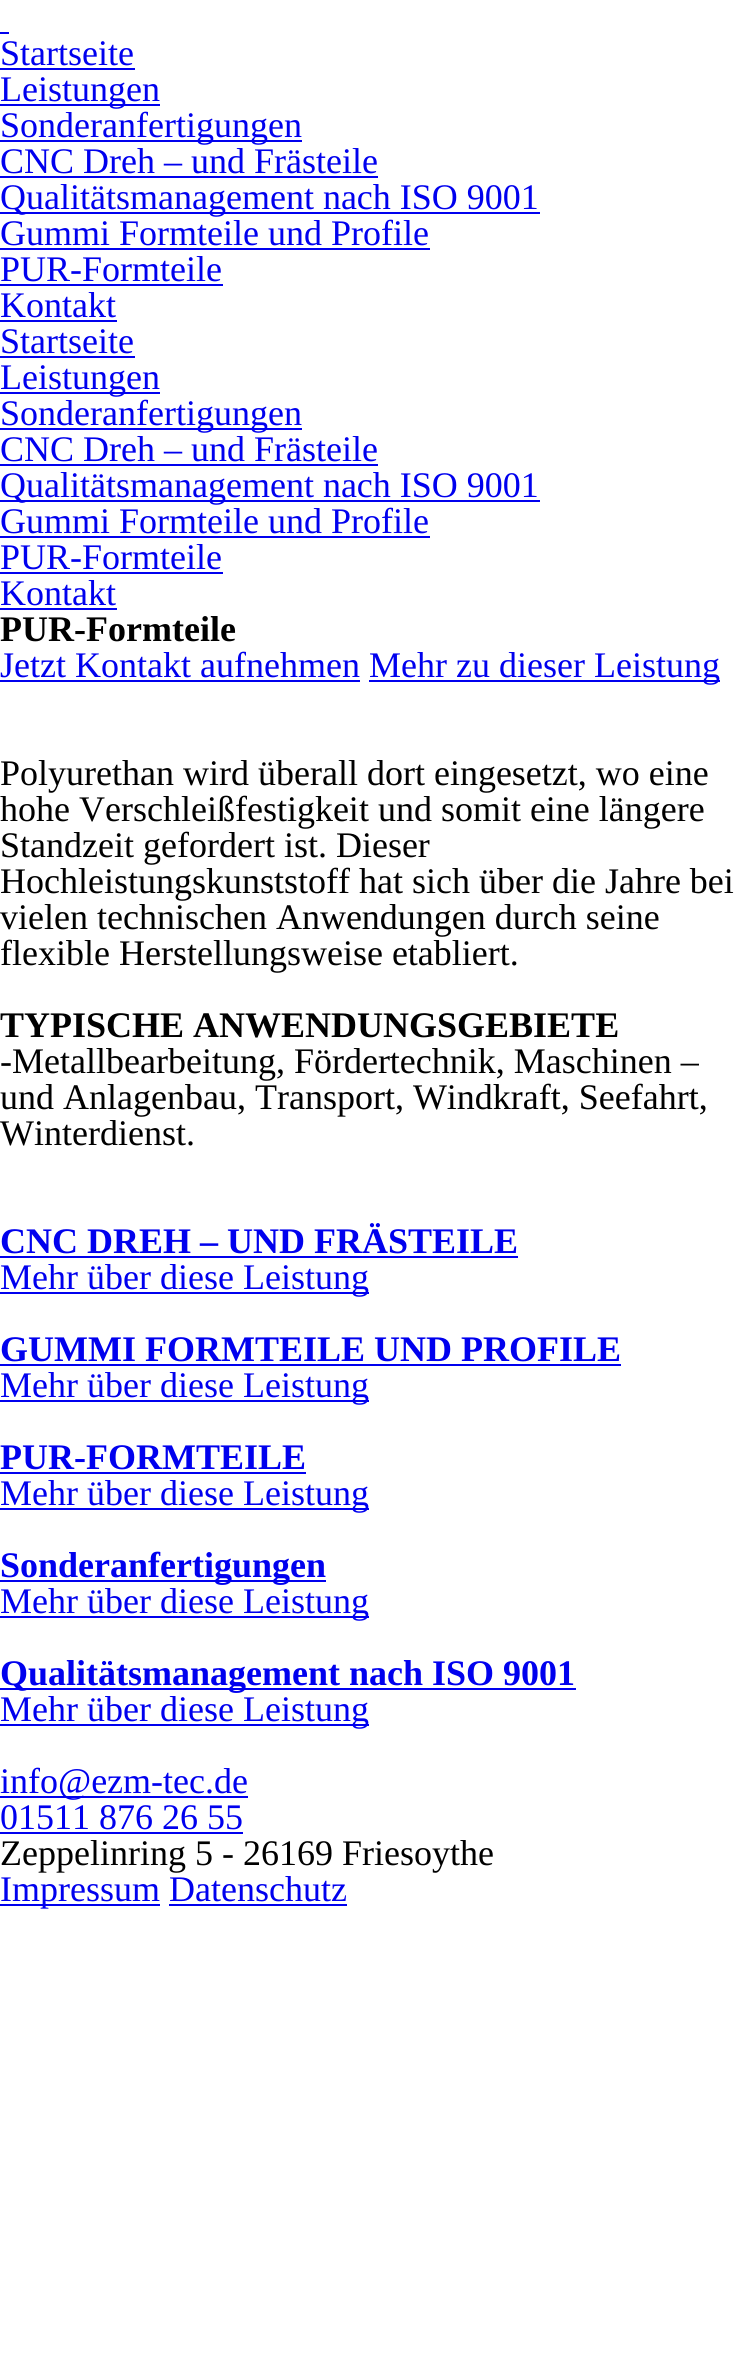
#include <cairo.h>
#include <math.h>
#include <stddef.h>


int main(void) {
    cairo_surface_t *surface = cairo_image_surface_create(CAIRO_FORMAT_RGB24, 752, 2367);
    cairo_t *cr = cairo_create(surface);
    cairo_font_options_t *options = cairo_font_options_create();
    cairo_font_options_set_hint_metrics(options, CAIRO_HINT_METRICS_OFF);
    cairo_font_options_set_hint_style(options, CAIRO_HINT_STYLE_NONE);
    cairo_set_font_options(cr, options);
    cairo_set_miter_limit(cr, 4);
    cairo_set_source_rgb(cr, 1, 1, 1);
    cairo_paint(cr);
    cairo_set_source_rgb(cr, 0, 0, 0.933);
    cairo_rectangle(cr, 0, 32, 9, 2);
    cairo_fill(cr);
    cairo_select_font_face(cr, "Liberation Serif", CAIRO_FONT_SLANT_NORMAL, CAIRO_FONT_WEIGHT_NORMAL);
    cairo_set_font_size(cr, 36);
    cairo_move_to(cr, 0, 65);
    cairo_show_text(cr, "Startseite");
    cairo_rectangle(cr, 0, 68, 135, 2);
    cairo_fill(cr);
    cairo_rectangle(cr, 0, 104, 160, 2);
    cairo_fill(cr);
    cairo_move_to(cr, 0, 101);
    cairo_show_text(cr, "Leistungen");
    cairo_rectangle(cr, 0, 140, 302, 2);
    cairo_fill(cr);
    cairo_move_to(cr, 0, 137);
    cairo_show_text(cr, "Sonderanfertigungen");
    cairo_move_to(cr, 0, 173);
    cairo_show_text(cr, "CNC Dreh – und Frästeile");
    cairo_rectangle(cr, 0, 176, 378, 2);
    cairo_fill(cr);
    cairo_rectangle(cr, 0, 212, 540, 2);
    cairo_fill(cr);
    cairo_move_to(cr, 0, 209);
    cairo_show_text(cr, "Qualitätsmanagement nach ISO 9001");
    cairo_move_to(cr, 0, 245);
    cairo_show_text(cr, "Gummi Formteile und Profile");
    cairo_rectangle(cr, 0, 248, 430, 2);
    cairo_fill(cr);
    cairo_move_to(cr, 0, 281);
    cairo_show_text(cr, "PUR-Formteile");
    cairo_rectangle(cr, 0, 284, 223, 2);
    cairo_fill(cr);
    cairo_move_to(cr, 0, 317);
    cairo_show_text(cr, "Kontakt");
    cairo_rectangle(cr, 0, 320, 117, 2);
    cairo_fill(cr);
    cairo_move_to(cr, 0, 353);
    cairo_show_text(cr, "Startseite");
    cairo_rectangle(cr, 0, 356, 135, 2);
    cairo_fill(cr);
    cairo_rectangle(cr, 0, 392, 160, 2);
    cairo_fill(cr);
    cairo_move_to(cr, 0, 389);
    cairo_show_text(cr, "Leistungen");
    cairo_rectangle(cr, 0, 428, 302, 2);
    cairo_fill(cr);
    cairo_move_to(cr, 0, 425);
    cairo_show_text(cr, "Sonderanfertigungen");
    cairo_move_to(cr, 0, 461);
    cairo_show_text(cr, "CNC Dreh – und Frästeile");
    cairo_rectangle(cr, 0, 464, 378, 2);
    cairo_fill(cr);
    cairo_rectangle(cr, 0, 500, 540, 2);
    cairo_fill(cr);
    cairo_move_to(cr, 0, 497);
    cairo_show_text(cr, "Qualitätsmanagement nach ISO 9001");
    cairo_move_to(cr, 0, 533);
    cairo_show_text(cr, "Gummi Formteile und Profile");
    cairo_rectangle(cr, 0, 536, 430, 2);
    cairo_fill(cr);
    cairo_move_to(cr, 0, 569);
    cairo_show_text(cr, "PUR-Formteile");
    cairo_rectangle(cr, 0, 572, 223, 2);
    cairo_fill(cr);
    cairo_move_to(cr, 0, 605);
    cairo_show_text(cr, "Kontakt");
    cairo_rectangle(cr, 0, 608, 117, 2);
    cairo_fill(cr);
    cairo_select_font_face(cr, "Liberation Serif", CAIRO_FONT_SLANT_NORMAL, CAIRO_FONT_WEIGHT_BOLD);
    cairo_set_source_rgb(cr, 0, 0, 0);
    cairo_move_to(cr, 0, 641);
    cairo_show_text(cr, "PUR-Formteile");
    cairo_select_font_face(cr, "Liberation Serif", CAIRO_FONT_SLANT_NORMAL, CAIRO_FONT_WEIGHT_NORMAL);
    cairo_set_source_rgb(cr, 0, 0, 0.933);
    cairo_move_to(cr, 0, 677);
    cairo_show_text(cr, "Jetzt Kontakt aufnehmen");
    cairo_rectangle(cr, 0, 680, 360, 2);
    cairo_fill(cr);
    cairo_rectangle(cr, 369, 680, 351, 2);
    cairo_fill(cr);
    cairo_move_to(cr, 369, 677);
    cairo_show_text(cr, "Mehr zu dieser Leistung");
    cairo_set_source_rgb(cr, 0, 0, 0);
    cairo_move_to(cr, 0, 785);
    cairo_show_text(cr, "Polyurethan wird überall dort eingesetzt, wo eine");
    cairo_move_to(cr, 0, 821);
    cairo_show_text(cr, "hohe Verschleißfestigkeit und somit eine längere");
    cairo_move_to(cr, 0, 857);
    cairo_show_text(cr, "Standzeit gefordert ist. Dieser");
    cairo_move_to(cr, 0, 893);
    cairo_show_text(cr, "Hochleistungskunststoff hat sich über die Jahre bei");
    cairo_move_to(cr, 0, 929);
    cairo_show_text(cr, "vielen technischen Anwendungen durch seine");
    cairo_move_to(cr, 0, 965);
    cairo_show_text(cr, "flexible Herstellungsweise etabliert.");
    cairo_select_font_face(cr, "Liberation Serif", CAIRO_FONT_SLANT_NORMAL, CAIRO_FONT_WEIGHT_BOLD);
    cairo_move_to(cr, 0, 1037);
    cairo_show_text(cr, "TYPISCHE ANWENDUNGSGEBIETE");
    cairo_select_font_face(cr, "Liberation Serif", CAIRO_FONT_SLANT_NORMAL, CAIRO_FONT_WEIGHT_NORMAL);
    cairo_move_to(cr, 0, 1073);
    cairo_show_text(cr, "-Metallbearbeitung, Fördertechnik, Maschinen –");
    cairo_move_to(cr, 0, 1109);
    cairo_show_text(cr, "und Anlagenbau, Transport, Windkraft, Seefahrt,");
    cairo_move_to(cr, 0, 1145);
    cairo_show_text(cr, "Winterdienst.");
    cairo_select_font_face(cr, "Liberation Serif", CAIRO_FONT_SLANT_NORMAL, CAIRO_FONT_WEIGHT_BOLD);
    cairo_set_source_rgb(cr, 0, 0, 0.933);
    cairo_move_to(cr, 0, 1253);
    cairo_show_text(cr, "CNC DREH – UND FRÄSTEILE");
    cairo_rectangle(cr, 0, 1256, 518, 2);
    cairo_fill(cr);
    cairo_rectangle(cr, 0, 1292, 369, 2);
    cairo_fill(cr);
    cairo_select_font_face(cr, "Liberation Serif", CAIRO_FONT_SLANT_NORMAL, CAIRO_FONT_WEIGHT_NORMAL);
    cairo_move_to(cr, 0, 1289);
    cairo_show_text(cr, "Mehr über diese Leistung");
    cairo_select_font_face(cr, "Liberation Serif", CAIRO_FONT_SLANT_NORMAL, CAIRO_FONT_WEIGHT_BOLD);
    cairo_move_to(cr, 0, 1361);
    cairo_show_text(cr, "GUMMI FORMTEILE UND PROFILE");
    cairo_rectangle(cr, 0, 1364, 621, 2);
    cairo_fill(cr);
    cairo_rectangle(cr, 0, 1400, 369, 2);
    cairo_fill(cr);
    cairo_select_font_face(cr, "Liberation Serif", CAIRO_FONT_SLANT_NORMAL, CAIRO_FONT_WEIGHT_NORMAL);
    cairo_move_to(cr, 0, 1397);
    cairo_show_text(cr, "Mehr über diese Leistung");
    cairo_select_font_face(cr, "Liberation Serif", CAIRO_FONT_SLANT_NORMAL, CAIRO_FONT_WEIGHT_BOLD);
    cairo_move_to(cr, 0, 1469);
    cairo_show_text(cr, "PUR-FORMTEILE");
    cairo_rectangle(cr, 0, 1472, 306, 2);
    cairo_fill(cr);
    cairo_rectangle(cr, 0, 1508, 369, 2);
    cairo_fill(cr);
    cairo_select_font_face(cr, "Liberation Serif", CAIRO_FONT_SLANT_NORMAL, CAIRO_FONT_WEIGHT_NORMAL);
    cairo_move_to(cr, 0, 1505);
    cairo_show_text(cr, "Mehr über diese Leistung");
    cairo_rectangle(cr, 0, 1580, 326, 2);
    cairo_fill(cr);
    cairo_select_font_face(cr, "Liberation Serif", CAIRO_FONT_SLANT_NORMAL, CAIRO_FONT_WEIGHT_BOLD);
    cairo_move_to(cr, 0, 1577);
    cairo_show_text(cr, "Sonderanfertigungen");
    cairo_rectangle(cr, 0, 1616, 369, 2);
    cairo_fill(cr);
    cairo_select_font_face(cr, "Liberation Serif", CAIRO_FONT_SLANT_NORMAL, CAIRO_FONT_WEIGHT_NORMAL);
    cairo_move_to(cr, 0, 1613);
    cairo_show_text(cr, "Mehr über diese Leistung");
    cairo_rectangle(cr, 0, 1688, 576, 2);
    cairo_fill(cr);
    cairo_select_font_face(cr, "Liberation Serif", CAIRO_FONT_SLANT_NORMAL, CAIRO_FONT_WEIGHT_BOLD);
    cairo_move_to(cr, 0, 1685);
    cairo_show_text(cr, "Qualitätsmanagement nach ISO 9001");
    cairo_rectangle(cr, 0, 1724, 369, 2);
    cairo_fill(cr);
    cairo_select_font_face(cr, "Liberation Serif", CAIRO_FONT_SLANT_NORMAL, CAIRO_FONT_WEIGHT_NORMAL);
    cairo_move_to(cr, 0, 1721);
    cairo_show_text(cr, "Mehr über diese Leistung");
    cairo_rectangle(cr, 0, 1796, 248, 2);
    cairo_fill(cr);
    cairo_move_to(cr, 0, 1793);
    cairo_show_text(cr, "info@ezm-tec.de");
    cairo_move_to(cr, 0, 1829);
    cairo_show_text(cr, "01511 876 26 55");
    cairo_rectangle(cr, 0, 1832, 243, 2);
    cairo_fill(cr);
    cairo_set_source_rgb(cr, 0, 0, 0);
    cairo_move_to(cr, 0, 1865);
    cairo_show_text(cr, "Zeppelinring 5 - 26169 Friesoythe");
    cairo_set_source_rgb(cr, 0, 0, 0.933);
    cairo_rectangle(cr, 0, 1904, 160, 2);
    cairo_fill(cr);
    cairo_move_to(cr, 0, 1901);
    cairo_show_text(cr, "Impressum Datenschutz");
    cairo_rectangle(cr, 169, 1904, 178, 2);
    cairo_fill(cr);
    cairo_surface_write_to_png(surface, "page.png");
    cairo_font_options_destroy(options);
    cairo_destroy(cr);
    cairo_surface_destroy(surface);
    return 0;
}
